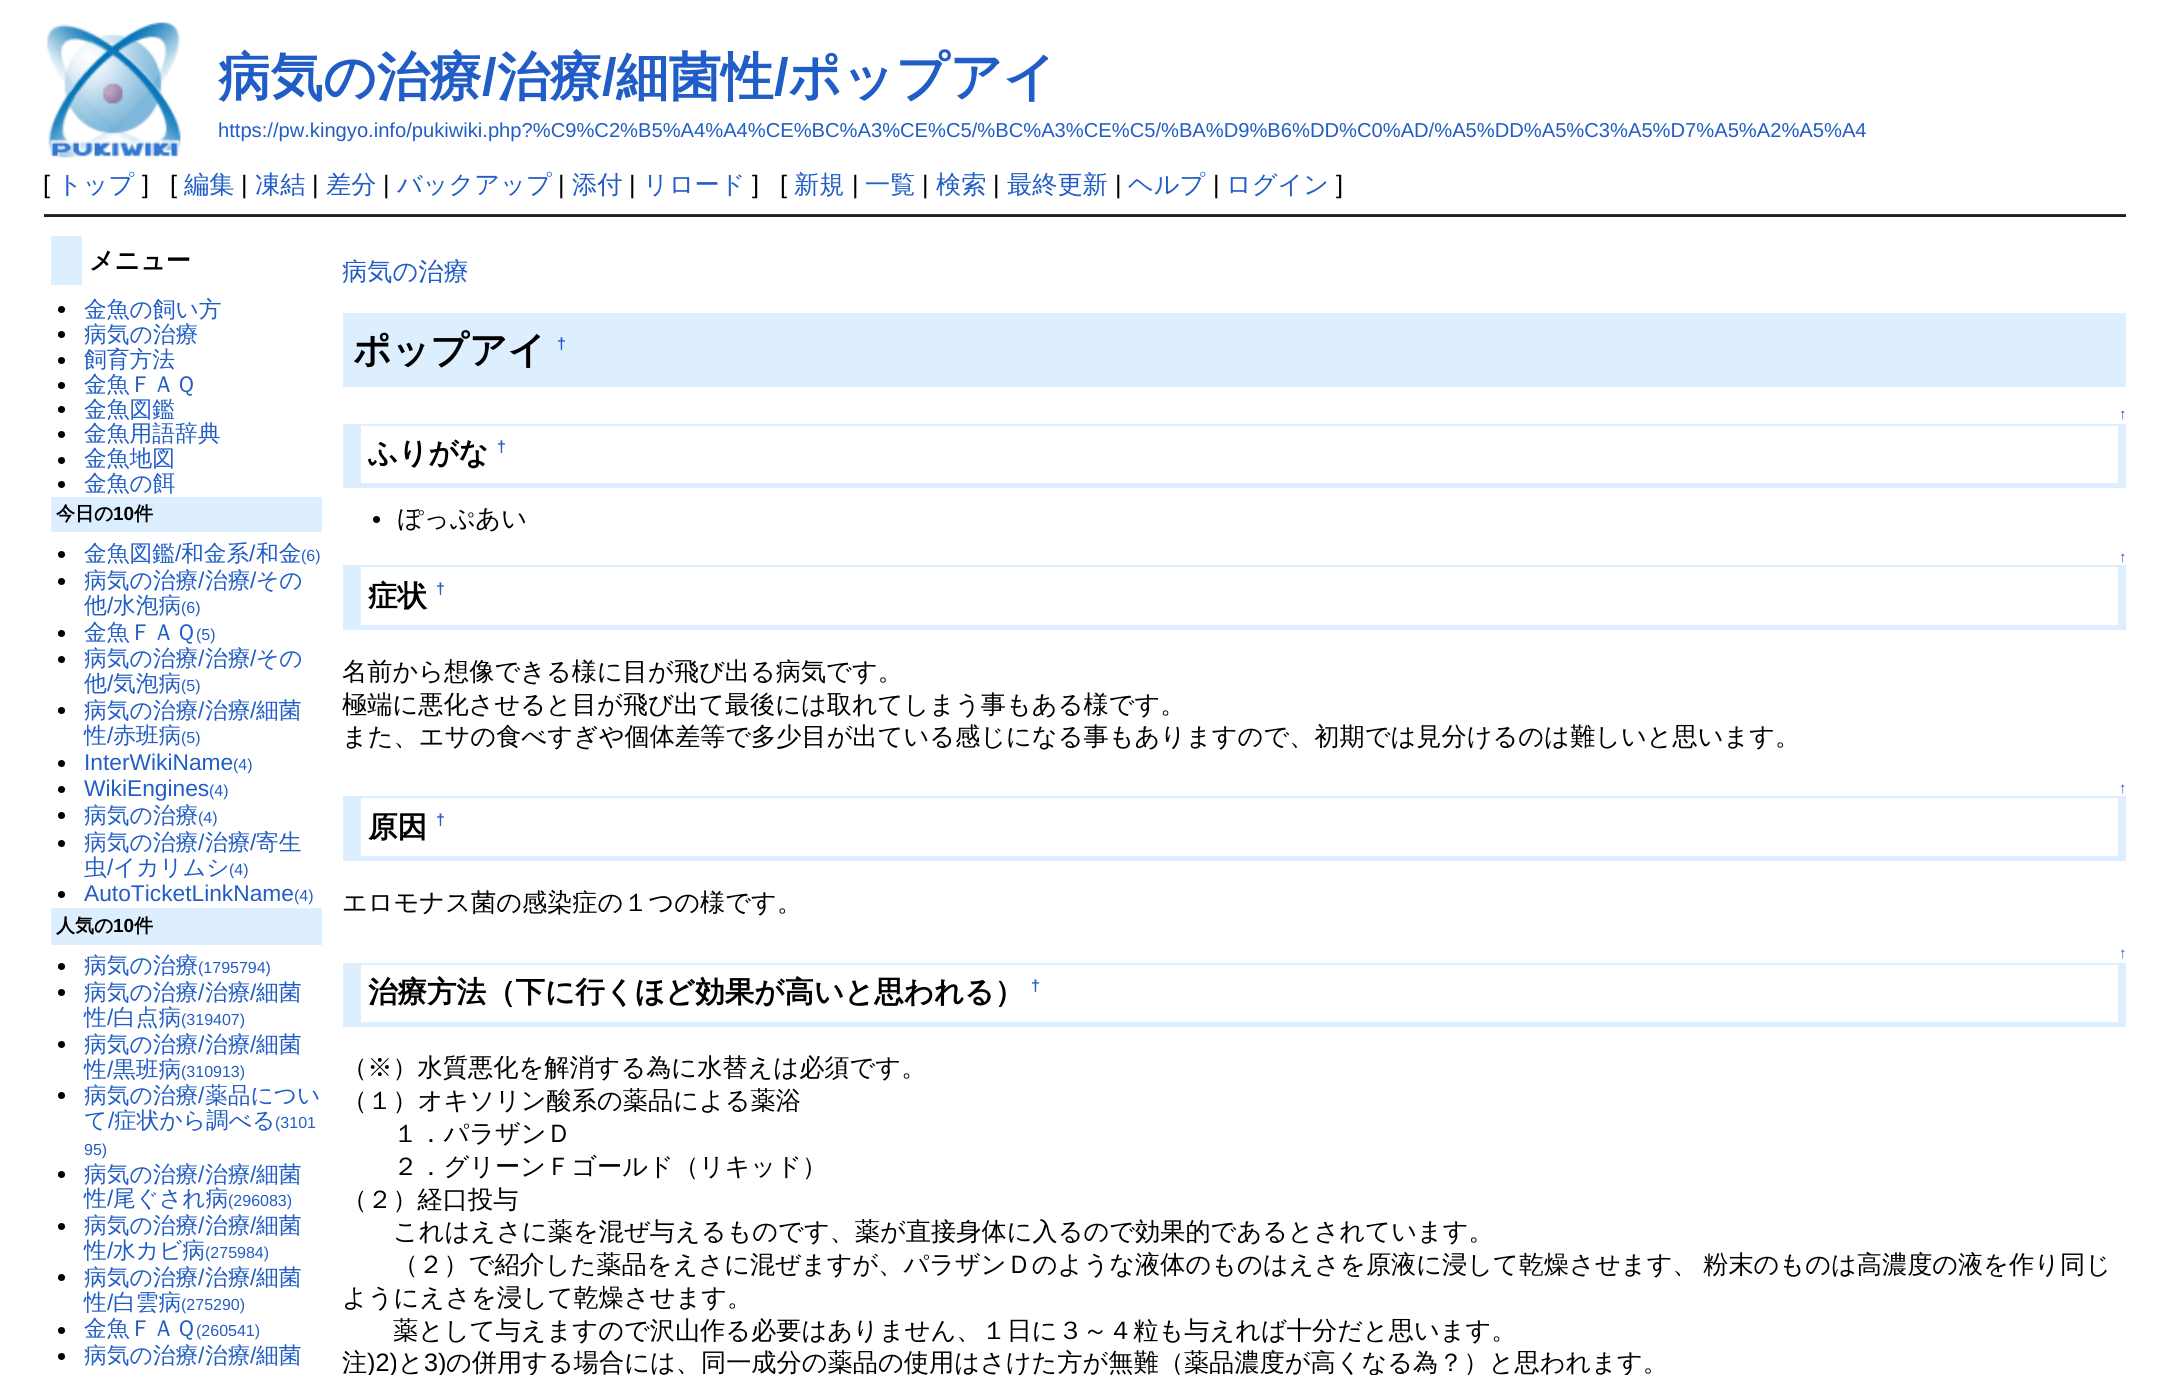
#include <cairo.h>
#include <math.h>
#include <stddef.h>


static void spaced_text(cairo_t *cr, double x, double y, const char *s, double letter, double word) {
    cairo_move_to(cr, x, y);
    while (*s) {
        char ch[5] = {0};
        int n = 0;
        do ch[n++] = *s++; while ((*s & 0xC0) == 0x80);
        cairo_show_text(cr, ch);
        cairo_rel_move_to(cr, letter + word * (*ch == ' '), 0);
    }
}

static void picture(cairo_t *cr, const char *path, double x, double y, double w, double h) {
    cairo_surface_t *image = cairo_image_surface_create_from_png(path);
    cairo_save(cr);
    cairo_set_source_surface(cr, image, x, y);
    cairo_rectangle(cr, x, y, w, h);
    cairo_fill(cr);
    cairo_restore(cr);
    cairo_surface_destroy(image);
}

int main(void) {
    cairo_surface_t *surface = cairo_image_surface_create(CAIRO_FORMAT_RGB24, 2169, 1375);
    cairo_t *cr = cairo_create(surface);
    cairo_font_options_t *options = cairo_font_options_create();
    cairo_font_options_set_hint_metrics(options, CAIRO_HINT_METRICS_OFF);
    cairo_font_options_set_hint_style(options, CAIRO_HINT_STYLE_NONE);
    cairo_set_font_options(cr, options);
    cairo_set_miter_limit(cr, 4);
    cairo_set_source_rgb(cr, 1, 1, 1);
    cairo_paint(cr);
    picture(cr, "img1.png", 47, 22, 134, 136);
    cairo_select_font_face(cr, "WenQuanYi Zen Hei", CAIRO_FONT_SLANT_NORMAL, CAIRO_FONT_WEIGHT_BOLD);
    cairo_set_font_size(cr, 52.5);
    cairo_set_source_rgb(cr, 0.129, 0.365, 0.776);
    cairo_move_to(cr, 218, 95);
    cairo_show_text(cr, "病気の治療");
    cairo_select_font_face(cr, "Liberation Sans", CAIRO_FONT_SLANT_NORMAL, CAIRO_FONT_WEIGHT_BOLD);
    cairo_move_to(cr, 482, 95);
    cairo_show_text(cr, "/");
    cairo_select_font_face(cr, "WenQuanYi Zen Hei", CAIRO_FONT_SLANT_NORMAL, CAIRO_FONT_WEIGHT_BOLD);
    cairo_move_to(cr, 497, 95);
    cairo_show_text(cr, "治療");
    cairo_select_font_face(cr, "Liberation Sans", CAIRO_FONT_SLANT_NORMAL, CAIRO_FONT_WEIGHT_BOLD);
    cairo_move_to(cr, 602, 95);
    cairo_show_text(cr, "/");
    cairo_select_font_face(cr, "WenQuanYi Zen Hei", CAIRO_FONT_SLANT_NORMAL, CAIRO_FONT_WEIGHT_BOLD);
    cairo_move_to(cr, 616, 95);
    cairo_show_text(cr, "細菌性");
    cairo_select_font_face(cr, "Liberation Sans", CAIRO_FONT_SLANT_NORMAL, CAIRO_FONT_WEIGHT_BOLD);
    cairo_move_to(cr, 774, 95);
    cairo_show_text(cr, "/");
    cairo_select_font_face(cr, "WenQuanYi Zen Hei", CAIRO_FONT_SLANT_NORMAL, CAIRO_FONT_WEIGHT_BOLD);
    cairo_move_to(cr, 788, 95);
    cairo_show_text(cr, "ポップアイ");
    cairo_select_font_face(cr, "Liberation Sans", CAIRO_FONT_SLANT_NORMAL, CAIRO_FONT_WEIGHT_NORMAL);
    cairo_set_font_size(cr, 20.15);
    cairo_move_to(cr, 218, 137);
    cairo_show_text(cr, "https://pw.kingyo.info/pukiwiki.php?%C9%C2%B5%A4%A4%CE%BC%A3%CE%C5/%BC%A3%CE%C5/%BA%D9%B6%DD%C0%AD/%A5%DD%A5%C3%A5%D7%A5%A2%A5%A4");
    cairo_set_font_size(cr, 25.2);
    cairo_set_source_rgb(cr, 0, 0, 0);
    cairo_move_to(cr, 43, 193);
    cairo_show_text(cr, "[");
    cairo_select_font_face(cr, "WenQuanYi Zen Hei Medium", CAIRO_FONT_SLANT_NORMAL, CAIRO_FONT_WEIGHT_NORMAL);
    cairo_set_source_rgb(cr, 0.129, 0.365, 0.776);
    cairo_move_to(cr, 57, 193);
    cairo_show_text(cr, "トップ");
    cairo_select_font_face(cr, "Liberation Sans", CAIRO_FONT_SLANT_NORMAL, CAIRO_FONT_WEIGHT_NORMAL);
    cairo_set_source_rgb(cr, 0, 0, 0);
    cairo_move_to(cr, 142, 193);
    cairo_show_text(cr, "]");
    cairo_move_to(cr, 170, 193);
    cairo_show_text(cr, "[");
    cairo_select_font_face(cr, "WenQuanYi Zen Hei Medium", CAIRO_FONT_SLANT_NORMAL, CAIRO_FONT_WEIGHT_NORMAL);
    cairo_set_source_rgb(cr, 0.129, 0.365, 0.776);
    cairo_move_to(cr, 184, 193);
    cairo_show_text(cr, "編集");
    cairo_select_font_face(cr, "Liberation Sans", CAIRO_FONT_SLANT_NORMAL, CAIRO_FONT_WEIGHT_NORMAL);
    cairo_set_source_rgb(cr, 0, 0, 0);
    cairo_move_to(cr, 241, 193);
    cairo_show_text(cr, "|");
    cairo_select_font_face(cr, "WenQuanYi Zen Hei Medium", CAIRO_FONT_SLANT_NORMAL, CAIRO_FONT_WEIGHT_NORMAL);
    cairo_set_source_rgb(cr, 0.129, 0.365, 0.776);
    cairo_move_to(cr, 255, 193);
    cairo_show_text(cr, "凍結");
    cairo_select_font_face(cr, "Liberation Sans", CAIRO_FONT_SLANT_NORMAL, CAIRO_FONT_WEIGHT_NORMAL);
    cairo_set_source_rgb(cr, 0, 0, 0);
    cairo_move_to(cr, 312, 193);
    cairo_show_text(cr, "|");
    cairo_select_font_face(cr, "WenQuanYi Zen Hei Medium", CAIRO_FONT_SLANT_NORMAL, CAIRO_FONT_WEIGHT_NORMAL);
    cairo_set_source_rgb(cr, 0.129, 0.365, 0.776);
    cairo_move_to(cr, 326, 193);
    cairo_show_text(cr, "差分");
    cairo_select_font_face(cr, "Liberation Sans", CAIRO_FONT_SLANT_NORMAL, CAIRO_FONT_WEIGHT_NORMAL);
    cairo_set_source_rgb(cr, 0, 0, 0);
    cairo_move_to(cr, 383, 193);
    cairo_show_text(cr, "|");
    cairo_select_font_face(cr, "WenQuanYi Zen Hei Medium", CAIRO_FONT_SLANT_NORMAL, CAIRO_FONT_WEIGHT_NORMAL);
    cairo_set_source_rgb(cr, 0.129, 0.365, 0.776);
    cairo_move_to(cr, 397, 193);
    cairo_show_text(cr, "バックアップ");
    cairo_select_font_face(cr, "Liberation Sans", CAIRO_FONT_SLANT_NORMAL, CAIRO_FONT_WEIGHT_NORMAL);
    cairo_set_source_rgb(cr, 0, 0, 0);
    cairo_move_to(cr, 558, 193);
    cairo_show_text(cr, "|");
    cairo_select_font_face(cr, "WenQuanYi Zen Hei Medium", CAIRO_FONT_SLANT_NORMAL, CAIRO_FONT_WEIGHT_NORMAL);
    cairo_set_source_rgb(cr, 0.129, 0.365, 0.776);
    cairo_move_to(cr, 572, 193);
    cairo_show_text(cr, "添付");
    cairo_select_font_face(cr, "Liberation Sans", CAIRO_FONT_SLANT_NORMAL, CAIRO_FONT_WEIGHT_NORMAL);
    cairo_set_source_rgb(cr, 0, 0, 0);
    cairo_move_to(cr, 629, 193);
    cairo_show_text(cr, "|");
    cairo_select_font_face(cr, "WenQuanYi Zen Hei Medium", CAIRO_FONT_SLANT_NORMAL, CAIRO_FONT_WEIGHT_NORMAL);
    cairo_set_source_rgb(cr, 0.129, 0.365, 0.776);
    cairo_move_to(cr, 643, 193);
    cairo_show_text(cr, "リロード");
    cairo_select_font_face(cr, "Liberation Sans", CAIRO_FONT_SLANT_NORMAL, CAIRO_FONT_WEIGHT_NORMAL);
    cairo_set_source_rgb(cr, 0, 0, 0);
    cairo_move_to(cr, 752, 193);
    cairo_show_text(cr, "]");
    cairo_move_to(cr, 780, 193);
    cairo_show_text(cr, "[");
    cairo_select_font_face(cr, "WenQuanYi Zen Hei Medium", CAIRO_FONT_SLANT_NORMAL, CAIRO_FONT_WEIGHT_NORMAL);
    cairo_set_source_rgb(cr, 0.129, 0.365, 0.776);
    cairo_move_to(cr, 794, 193);
    cairo_show_text(cr, "新規");
    cairo_select_font_face(cr, "Liberation Sans", CAIRO_FONT_SLANT_NORMAL, CAIRO_FONT_WEIGHT_NORMAL);
    cairo_set_source_rgb(cr, 0, 0, 0);
    cairo_move_to(cr, 852, 193);
    cairo_show_text(cr, "|");
    cairo_select_font_face(cr, "WenQuanYi Zen Hei Medium", CAIRO_FONT_SLANT_NORMAL, CAIRO_FONT_WEIGHT_NORMAL);
    cairo_set_source_rgb(cr, 0.129, 0.365, 0.776);
    cairo_move_to(cr, 865, 193);
    cairo_show_text(cr, "一覧");
    cairo_select_font_face(cr, "Liberation Sans", CAIRO_FONT_SLANT_NORMAL, CAIRO_FONT_WEIGHT_NORMAL);
    cairo_set_source_rgb(cr, 0, 0, 0);
    cairo_move_to(cr, 922, 193);
    cairo_show_text(cr, "|");
    cairo_select_font_face(cr, "WenQuanYi Zen Hei Medium", CAIRO_FONT_SLANT_NORMAL, CAIRO_FONT_WEIGHT_NORMAL);
    cairo_set_source_rgb(cr, 0.129, 0.365, 0.776);
    cairo_move_to(cr, 936, 193);
    cairo_show_text(cr, "検索");
    cairo_select_font_face(cr, "Liberation Sans", CAIRO_FONT_SLANT_NORMAL, CAIRO_FONT_WEIGHT_NORMAL);
    cairo_set_source_rgb(cr, 0, 0, 0);
    cairo_move_to(cr, 993, 193);
    cairo_show_text(cr, "|");
    cairo_select_font_face(cr, "WenQuanYi Zen Hei Medium", CAIRO_FONT_SLANT_NORMAL, CAIRO_FONT_WEIGHT_NORMAL);
    cairo_set_source_rgb(cr, 0.129, 0.365, 0.776);
    cairo_move_to(cr, 1007, 193);
    cairo_show_text(cr, "最終更新");
    cairo_select_font_face(cr, "Liberation Sans", CAIRO_FONT_SLANT_NORMAL, CAIRO_FONT_WEIGHT_NORMAL);
    cairo_set_source_rgb(cr, 0, 0, 0);
    cairo_move_to(cr, 1115, 193);
    cairo_show_text(cr, "|");
    cairo_select_font_face(cr, "WenQuanYi Zen Hei Medium", CAIRO_FONT_SLANT_NORMAL, CAIRO_FONT_WEIGHT_NORMAL);
    cairo_set_source_rgb(cr, 0.129, 0.365, 0.776);
    cairo_move_to(cr, 1128, 193);
    cairo_show_text(cr, "ヘルプ");
    cairo_select_font_face(cr, "Liberation Sans", CAIRO_FONT_SLANT_NORMAL, CAIRO_FONT_WEIGHT_NORMAL);
    cairo_set_source_rgb(cr, 0, 0, 0);
    cairo_move_to(cr, 1213, 193);
    cairo_show_text(cr, "|");
    cairo_select_font_face(cr, "WenQuanYi Zen Hei Medium", CAIRO_FONT_SLANT_NORMAL, CAIRO_FONT_WEIGHT_NORMAL);
    cairo_set_source_rgb(cr, 0.129, 0.365, 0.776);
    cairo_move_to(cr, 1226, 193);
    cairo_show_text(cr, "ログイン");
    cairo_select_font_face(cr, "Liberation Sans", CAIRO_FONT_SLANT_NORMAL, CAIRO_FONT_WEIGHT_NORMAL);
    cairo_set_source_rgb(cr, 0, 0, 0);
    cairo_move_to(cr, 1336, 193);
    cairo_show_text(cr, "]");
    cairo_set_source_rgb(cr, 0.2, 0.2, 0.2);
    cairo_rectangle(cr, 44, 214, 2082, 1);
    cairo_fill(cr);
    cairo_set_source_rgb(cr, 0.133, 0.133, 0.133);
    cairo_rectangle(cr, 44, 215, 2082, 2);
    cairo_fill(cr);
    cairo_set_source_rgb(cr, 0.867, 0.933, 1);
    cairo_rectangle(cr, 51, 236, 31, 49);
    cairo_fill(cr);
    cairo_select_font_face(cr, "WenQuanYi Zen Hei", CAIRO_FONT_SLANT_NORMAL, CAIRO_FONT_WEIGHT_BOLD);
    cairo_set_font_size(cr, 25);
    cairo_set_source_rgb(cr, 0, 0, 0);
    cairo_move_to(cr, 89, 269);
    cairo_show_text(cr, "メニュー");
    cairo_new_path(cr);
    cairo_arc(cr, 61.5, 309.5, 3.5, 0, 2 * M_PI);
    cairo_fill(cr);
    cairo_select_font_face(cr, "WenQuanYi Zen Hei Medium", CAIRO_FONT_SLANT_NORMAL, CAIRO_FONT_WEIGHT_NORMAL);
    cairo_set_font_size(cr, 22.75);
    cairo_set_source_rgb(cr, 0.129, 0.365, 0.776);
    cairo_move_to(cr, 84, 317);
    cairo_show_text(cr, "金魚の飼い方");
    cairo_set_source_rgb(cr, 0, 0, 0);
    cairo_new_path(cr);
    cairo_arc(cr, 61.5, 334.5, 3.5, 0, 2 * M_PI);
    cairo_fill(cr);
    cairo_set_source_rgb(cr, 0.129, 0.365, 0.776);
    cairo_move_to(cr, 84, 342);
    cairo_show_text(cr, "病気の治療");
    cairo_set_source_rgb(cr, 0, 0, 0);
    cairo_new_path(cr);
    cairo_arc(cr, 61.5, 360.5, 3.5, 0, 2 * M_PI);
    cairo_fill(cr);
    cairo_set_source_rgb(cr, 0.129, 0.365, 0.776);
    cairo_move_to(cr, 84, 367);
    cairo_show_text(cr, "飼育方法");
    cairo_set_source_rgb(cr, 0, 0, 0);
    cairo_new_path(cr);
    cairo_arc(cr, 61.5, 385.5, 3.5, 0, 2 * M_PI);
    cairo_fill(cr);
    cairo_set_source_rgb(cr, 0.129, 0.365, 0.776);
    cairo_move_to(cr, 84, 392);
    cairo_show_text(cr, "金魚ＦＡＱ");
    cairo_set_source_rgb(cr, 0, 0, 0);
    cairo_new_path(cr);
    cairo_arc(cr, 61.5, 409.5, 3.5, 0, 2 * M_PI);
    cairo_fill(cr);
    cairo_set_source_rgb(cr, 0.129, 0.365, 0.776);
    cairo_move_to(cr, 84, 417);
    cairo_show_text(cr, "金魚図鑑");
    cairo_set_source_rgb(cr, 0, 0, 0);
    cairo_new_path(cr);
    cairo_arc(cr, 61.5, 434.5, 3.5, 0, 2 * M_PI);
    cairo_fill(cr);
    cairo_set_source_rgb(cr, 0.129, 0.365, 0.776);
    cairo_move_to(cr, 84, 441);
    cairo_show_text(cr, "金魚用語辞典");
    cairo_set_source_rgb(cr, 0, 0, 0);
    cairo_new_path(cr);
    cairo_arc(cr, 61.5, 460.5, 3.5, 0, 2 * M_PI);
    cairo_fill(cr);
    cairo_set_source_rgb(cr, 0.129, 0.365, 0.776);
    cairo_move_to(cr, 84, 466);
    cairo_show_text(cr, "金魚地図");
    cairo_set_source_rgb(cr, 0, 0, 0);
    cairo_new_path(cr);
    cairo_arc(cr, 61.5, 484.5, 3.5, 0, 2 * M_PI);
    cairo_fill(cr);
    cairo_set_source_rgb(cr, 0.129, 0.365, 0.776);
    cairo_move_to(cr, 84, 491);
    cairo_show_text(cr, "金魚の餌");
    cairo_set_source_rgb(cr, 0.867, 0.933, 1);
    cairo_rectangle(cr, 51, 497, 271, 35);
    cairo_fill(cr);
    cairo_select_font_face(cr, "WenQuanYi Zen Hei", CAIRO_FONT_SLANT_NORMAL, CAIRO_FONT_WEIGHT_BOLD);
    cairo_set_font_size(cr, 19);
    cairo_set_source_rgb(cr, 0, 0, 0);
    cairo_move_to(cr, 56, 520);
    cairo_show_text(cr, "今日の");
    cairo_select_font_face(cr, "Liberation Sans", CAIRO_FONT_SLANT_NORMAL, CAIRO_FONT_WEIGHT_BOLD);
    cairo_move_to(cr, 113, 520);
    cairo_show_text(cr, "10");
    cairo_select_font_face(cr, "WenQuanYi Zen Hei", CAIRO_FONT_SLANT_NORMAL, CAIRO_FONT_WEIGHT_BOLD);
    cairo_move_to(cr, 134, 520);
    cairo_show_text(cr, "件");
    cairo_new_path(cr);
    cairo_arc(cr, 61.5, 554.5, 3.5, 0, 2 * M_PI);
    cairo_fill(cr);
    cairo_select_font_face(cr, "WenQuanYi Zen Hei Medium", CAIRO_FONT_SLANT_NORMAL, CAIRO_FONT_WEIGHT_NORMAL);
    cairo_set_font_size(cr, 22.75);
    cairo_set_source_rgb(cr, 0.129, 0.365, 0.776);
    cairo_move_to(cr, 84, 561);
    cairo_show_text(cr, "金魚図鑑");
    cairo_select_font_face(cr, "Liberation Sans", CAIRO_FONT_SLANT_NORMAL, CAIRO_FONT_WEIGHT_NORMAL);
    cairo_move_to(cr, 175, 561);
    cairo_show_text(cr, "/");
    cairo_select_font_face(cr, "WenQuanYi Zen Hei Medium", CAIRO_FONT_SLANT_NORMAL, CAIRO_FONT_WEIGHT_NORMAL);
    cairo_move_to(cr, 181, 561);
    cairo_show_text(cr, "和金系");
    cairo_select_font_face(cr, "Liberation Sans", CAIRO_FONT_SLANT_NORMAL, CAIRO_FONT_WEIGHT_NORMAL);
    cairo_move_to(cr, 249, 561);
    cairo_show_text(cr, "/");
    cairo_select_font_face(cr, "WenQuanYi Zen Hei Medium", CAIRO_FONT_SLANT_NORMAL, CAIRO_FONT_WEIGHT_NORMAL);
    cairo_move_to(cr, 256, 561);
    cairo_show_text(cr, "和金");
    cairo_select_font_face(cr, "Liberation Sans", CAIRO_FONT_SLANT_NORMAL, CAIRO_FONT_WEIGHT_NORMAL);
    cairo_set_font_size(cr, 16);
    cairo_move_to(cr, 301, 561);
    cairo_show_text(cr, "(6)");
    cairo_set_source_rgb(cr, 0, 0, 0);
    cairo_new_path(cr);
    cairo_arc(cr, 61.5, 581.5, 3.5, 0, 2 * M_PI);
    cairo_fill(cr);
    cairo_select_font_face(cr, "WenQuanYi Zen Hei Medium", CAIRO_FONT_SLANT_NORMAL, CAIRO_FONT_WEIGHT_NORMAL);
    cairo_set_font_size(cr, 22.75);
    cairo_set_source_rgb(cr, 0.129, 0.365, 0.776);
    cairo_move_to(cr, 84, 588);
    cairo_show_text(cr, "病気の治療");
    cairo_select_font_face(cr, "Liberation Sans", CAIRO_FONT_SLANT_NORMAL, CAIRO_FONT_WEIGHT_NORMAL);
    cairo_move_to(cr, 198, 588);
    cairo_show_text(cr, "/");
    cairo_select_font_face(cr, "WenQuanYi Zen Hei Medium", CAIRO_FONT_SLANT_NORMAL, CAIRO_FONT_WEIGHT_NORMAL);
    cairo_move_to(cr, 205, 588);
    cairo_show_text(cr, "治療");
    cairo_select_font_face(cr, "Liberation Sans", CAIRO_FONT_SLANT_NORMAL, CAIRO_FONT_WEIGHT_NORMAL);
    cairo_move_to(cr, 250, 588);
    cairo_show_text(cr, "/");
    cairo_select_font_face(cr, "WenQuanYi Zen Hei Medium", CAIRO_FONT_SLANT_NORMAL, CAIRO_FONT_WEIGHT_NORMAL);
    cairo_move_to(cr, 256, 588);
    cairo_show_text(cr, "その");
    cairo_move_to(cr, 84, 613);
    cairo_show_text(cr, "他");
    cairo_select_font_face(cr, "Liberation Sans", CAIRO_FONT_SLANT_NORMAL, CAIRO_FONT_WEIGHT_NORMAL);
    cairo_move_to(cr, 107, 613);
    cairo_show_text(cr, "/");
    cairo_select_font_face(cr, "WenQuanYi Zen Hei Medium", CAIRO_FONT_SLANT_NORMAL, CAIRO_FONT_WEIGHT_NORMAL);
    cairo_move_to(cr, 113, 613);
    cairo_show_text(cr, "水泡病");
    cairo_select_font_face(cr, "Liberation Sans", CAIRO_FONT_SLANT_NORMAL, CAIRO_FONT_WEIGHT_NORMAL);
    cairo_set_font_size(cr, 16);
    cairo_move_to(cr, 181, 613);
    cairo_show_text(cr, "(6)");
    cairo_set_source_rgb(cr, 0, 0, 0);
    cairo_new_path(cr);
    cairo_arc(cr, 61.5, 633.5, 3.5, 0, 2 * M_PI);
    cairo_fill(cr);
    cairo_select_font_face(cr, "WenQuanYi Zen Hei Medium", CAIRO_FONT_SLANT_NORMAL, CAIRO_FONT_WEIGHT_NORMAL);
    cairo_set_font_size(cr, 22.75);
    cairo_set_source_rgb(cr, 0.129, 0.365, 0.776);
    cairo_move_to(cr, 84, 640);
    cairo_show_text(cr, "金魚ＦＡＱ");
    cairo_select_font_face(cr, "Liberation Sans", CAIRO_FONT_SLANT_NORMAL, CAIRO_FONT_WEIGHT_NORMAL);
    cairo_set_font_size(cr, 16);
    cairo_move_to(cr, 196, 640);
    cairo_show_text(cr, "(5)");
    cairo_set_source_rgb(cr, 0, 0, 0);
    cairo_new_path(cr);
    cairo_arc(cr, 61.5, 659.5, 3.5, 0, 2 * M_PI);
    cairo_fill(cr);
    cairo_select_font_face(cr, "WenQuanYi Zen Hei Medium", CAIRO_FONT_SLANT_NORMAL, CAIRO_FONT_WEIGHT_NORMAL);
    cairo_set_font_size(cr, 22.75);
    cairo_set_source_rgb(cr, 0.129, 0.365, 0.776);
    cairo_move_to(cr, 84, 666);
    cairo_show_text(cr, "病気の治療");
    cairo_select_font_face(cr, "Liberation Sans", CAIRO_FONT_SLANT_NORMAL, CAIRO_FONT_WEIGHT_NORMAL);
    cairo_move_to(cr, 198, 666);
    cairo_show_text(cr, "/");
    cairo_select_font_face(cr, "WenQuanYi Zen Hei Medium", CAIRO_FONT_SLANT_NORMAL, CAIRO_FONT_WEIGHT_NORMAL);
    cairo_move_to(cr, 205, 666);
    cairo_show_text(cr, "治療");
    cairo_select_font_face(cr, "Liberation Sans", CAIRO_FONT_SLANT_NORMAL, CAIRO_FONT_WEIGHT_NORMAL);
    cairo_move_to(cr, 250, 666);
    cairo_show_text(cr, "/");
    cairo_select_font_face(cr, "WenQuanYi Zen Hei Medium", CAIRO_FONT_SLANT_NORMAL, CAIRO_FONT_WEIGHT_NORMAL);
    cairo_move_to(cr, 256, 666);
    cairo_show_text(cr, "その");
    cairo_move_to(cr, 84, 691);
    cairo_show_text(cr, "他");
    cairo_select_font_face(cr, "Liberation Sans", CAIRO_FONT_SLANT_NORMAL, CAIRO_FONT_WEIGHT_NORMAL);
    cairo_move_to(cr, 107, 691);
    cairo_show_text(cr, "/");
    cairo_select_font_face(cr, "WenQuanYi Zen Hei Medium", CAIRO_FONT_SLANT_NORMAL, CAIRO_FONT_WEIGHT_NORMAL);
    cairo_move_to(cr, 113, 691);
    cairo_show_text(cr, "気泡病");
    cairo_select_font_face(cr, "Liberation Sans", CAIRO_FONT_SLANT_NORMAL, CAIRO_FONT_WEIGHT_NORMAL);
    cairo_set_font_size(cr, 16);
    cairo_move_to(cr, 181, 691);
    cairo_show_text(cr, "(5)");
    cairo_set_source_rgb(cr, 0, 0, 0);
    cairo_new_path(cr);
    cairo_arc(cr, 61.5, 710.5, 3.5, 0, 2 * M_PI);
    cairo_fill(cr);
    cairo_select_font_face(cr, "WenQuanYi Zen Hei Medium", CAIRO_FONT_SLANT_NORMAL, CAIRO_FONT_WEIGHT_NORMAL);
    cairo_set_font_size(cr, 22.75);
    cairo_set_source_rgb(cr, 0.129, 0.365, 0.776);
    cairo_move_to(cr, 84, 718);
    cairo_show_text(cr, "病気の治療");
    cairo_select_font_face(cr, "Liberation Sans", CAIRO_FONT_SLANT_NORMAL, CAIRO_FONT_WEIGHT_NORMAL);
    cairo_move_to(cr, 198, 718);
    cairo_show_text(cr, "/");
    cairo_select_font_face(cr, "WenQuanYi Zen Hei Medium", CAIRO_FONT_SLANT_NORMAL, CAIRO_FONT_WEIGHT_NORMAL);
    cairo_move_to(cr, 205, 718);
    cairo_show_text(cr, "治療");
    cairo_select_font_face(cr, "Liberation Sans", CAIRO_FONT_SLANT_NORMAL, CAIRO_FONT_WEIGHT_NORMAL);
    cairo_move_to(cr, 250, 718);
    cairo_show_text(cr, "/");
    cairo_select_font_face(cr, "WenQuanYi Zen Hei Medium", CAIRO_FONT_SLANT_NORMAL, CAIRO_FONT_WEIGHT_NORMAL);
    cairo_move_to(cr, 256, 718);
    cairo_show_text(cr, "細菌");
    cairo_move_to(cr, 84, 743);
    cairo_show_text(cr, "性");
    cairo_select_font_face(cr, "Liberation Sans", CAIRO_FONT_SLANT_NORMAL, CAIRO_FONT_WEIGHT_NORMAL);
    cairo_move_to(cr, 107, 743);
    cairo_show_text(cr, "/");
    cairo_select_font_face(cr, "WenQuanYi Zen Hei Medium", CAIRO_FONT_SLANT_NORMAL, CAIRO_FONT_WEIGHT_NORMAL);
    cairo_move_to(cr, 113, 743);
    cairo_show_text(cr, "赤班病");
    cairo_select_font_face(cr, "Liberation Sans", CAIRO_FONT_SLANT_NORMAL, CAIRO_FONT_WEIGHT_NORMAL);
    cairo_set_font_size(cr, 16);
    cairo_move_to(cr, 181, 743);
    cairo_show_text(cr, "(5)");
    cairo_set_source_rgb(cr, 0, 0, 0);
    cairo_new_path(cr);
    cairo_arc(cr, 61.5, 763.5, 3.5, 0, 2 * M_PI);
    cairo_fill(cr);
    cairo_set_font_size(cr, 22.75);
    cairo_set_source_rgb(cr, 0.129, 0.365, 0.776);
    cairo_move_to(cr, 84, 770);
    cairo_show_text(cr, "InterWikiName");
    cairo_set_font_size(cr, 16);
    cairo_move_to(cr, 233, 770);
    cairo_show_text(cr, "(4)");
    cairo_set_source_rgb(cr, 0, 0, 0);
    cairo_new_path(cr);
    cairo_arc(cr, 61.5, 789.5, 3.5, 0, 2 * M_PI);
    cairo_fill(cr);
    cairo_set_font_size(cr, 22.75);
    cairo_set_source_rgb(cr, 0.129, 0.365, 0.776);
    cairo_move_to(cr, 84, 796);
    cairo_show_text(cr, "WikiEngines");
    cairo_set_font_size(cr, 16);
    cairo_move_to(cr, 209, 796);
    cairo_show_text(cr, "(4)");
    cairo_set_source_rgb(cr, 0, 0, 0);
    cairo_new_path(cr);
    cairo_arc(cr, 61.5, 815.5, 3.5, 0, 2 * M_PI);
    cairo_fill(cr);
    cairo_select_font_face(cr, "WenQuanYi Zen Hei Medium", CAIRO_FONT_SLANT_NORMAL, CAIRO_FONT_WEIGHT_NORMAL);
    cairo_set_font_size(cr, 22.75);
    cairo_set_source_rgb(cr, 0.129, 0.365, 0.776);
    cairo_move_to(cr, 84, 823);
    cairo_show_text(cr, "病気の治療");
    cairo_select_font_face(cr, "Liberation Sans", CAIRO_FONT_SLANT_NORMAL, CAIRO_FONT_WEIGHT_NORMAL);
    cairo_set_font_size(cr, 16);
    cairo_move_to(cr, 198, 823);
    cairo_show_text(cr, "(4)");
    cairo_set_source_rgb(cr, 0, 0, 0);
    cairo_new_path(cr);
    cairo_arc(cr, 61.5, 843.5, 3.5, 0, 2 * M_PI);
    cairo_fill(cr);
    cairo_select_font_face(cr, "WenQuanYi Zen Hei Medium", CAIRO_FONT_SLANT_NORMAL, CAIRO_FONT_WEIGHT_NORMAL);
    cairo_set_font_size(cr, 22.75);
    cairo_set_source_rgb(cr, 0.129, 0.365, 0.776);
    cairo_move_to(cr, 84, 850);
    cairo_show_text(cr, "病気の治療");
    cairo_select_font_face(cr, "Liberation Sans", CAIRO_FONT_SLANT_NORMAL, CAIRO_FONT_WEIGHT_NORMAL);
    cairo_move_to(cr, 198, 850);
    cairo_show_text(cr, "/");
    cairo_select_font_face(cr, "WenQuanYi Zen Hei Medium", CAIRO_FONT_SLANT_NORMAL, CAIRO_FONT_WEIGHT_NORMAL);
    cairo_move_to(cr, 205, 850);
    cairo_show_text(cr, "治療");
    cairo_select_font_face(cr, "Liberation Sans", CAIRO_FONT_SLANT_NORMAL, CAIRO_FONT_WEIGHT_NORMAL);
    cairo_move_to(cr, 250, 850);
    cairo_show_text(cr, "/");
    cairo_select_font_face(cr, "WenQuanYi Zen Hei Medium", CAIRO_FONT_SLANT_NORMAL, CAIRO_FONT_WEIGHT_NORMAL);
    cairo_move_to(cr, 256, 850);
    cairo_show_text(cr, "寄生");
    cairo_move_to(cr, 84, 875);
    cairo_show_text(cr, "虫");
    cairo_select_font_face(cr, "Liberation Sans", CAIRO_FONT_SLANT_NORMAL, CAIRO_FONT_WEIGHT_NORMAL);
    cairo_move_to(cr, 107, 875);
    cairo_show_text(cr, "/");
    cairo_select_font_face(cr, "WenQuanYi Zen Hei Medium", CAIRO_FONT_SLANT_NORMAL, CAIRO_FONT_WEIGHT_NORMAL);
    cairo_move_to(cr, 113, 875);
    cairo_show_text(cr, "イカリムシ");
    cairo_select_font_face(cr, "Liberation Sans", CAIRO_FONT_SLANT_NORMAL, CAIRO_FONT_WEIGHT_NORMAL);
    cairo_set_font_size(cr, 16);
    cairo_move_to(cr, 229, 875);
    cairo_show_text(cr, "(4)");
    cairo_set_source_rgb(cr, 0, 0, 0);
    cairo_new_path(cr);
    cairo_arc(cr, 61.5, 894.5, 3.5, 0, 2 * M_PI);
    cairo_fill(cr);
    cairo_set_font_size(cr, 22.75);
    cairo_set_source_rgb(cr, 0.129, 0.365, 0.776);
    cairo_move_to(cr, 84, 901);
    cairo_show_text(cr, "AutoTicketLinkName");
    cairo_set_font_size(cr, 16);
    cairo_move_to(cr, 294, 901);
    cairo_show_text(cr, "(4)");
    cairo_set_source_rgb(cr, 0.867, 0.933, 1);
    cairo_rectangle(cr, 51, 908, 271, 37);
    cairo_fill(cr);
    cairo_select_font_face(cr, "WenQuanYi Zen Hei", CAIRO_FONT_SLANT_NORMAL, CAIRO_FONT_WEIGHT_BOLD);
    cairo_set_font_size(cr, 19);
    cairo_set_source_rgb(cr, 0, 0, 0);
    cairo_move_to(cr, 56, 932);
    cairo_show_text(cr, "人気の");
    cairo_select_font_face(cr, "Liberation Sans", CAIRO_FONT_SLANT_NORMAL, CAIRO_FONT_WEIGHT_BOLD);
    cairo_move_to(cr, 113, 932);
    cairo_show_text(cr, "10");
    cairo_select_font_face(cr, "WenQuanYi Zen Hei", CAIRO_FONT_SLANT_NORMAL, CAIRO_FONT_WEIGHT_BOLD);
    cairo_move_to(cr, 134, 932);
    cairo_show_text(cr, "件");
    cairo_new_path(cr);
    cairo_arc(cr, 61.5, 966.5, 3.5, 0, 2 * M_PI);
    cairo_fill(cr);
    cairo_select_font_face(cr, "WenQuanYi Zen Hei Medium", CAIRO_FONT_SLANT_NORMAL, CAIRO_FONT_WEIGHT_NORMAL);
    cairo_set_font_size(cr, 22.75);
    cairo_set_source_rgb(cr, 0.129, 0.365, 0.776);
    cairo_move_to(cr, 84, 973);
    cairo_show_text(cr, "病気の治療");
    cairo_select_font_face(cr, "Liberation Sans", CAIRO_FONT_SLANT_NORMAL, CAIRO_FONT_WEIGHT_NORMAL);
    cairo_set_font_size(cr, 16);
    cairo_move_to(cr, 198, 973);
    cairo_show_text(cr, "(1795794)");
    cairo_set_source_rgb(cr, 0, 0, 0);
    cairo_new_path(cr);
    cairo_arc(cr, 61.5, 992.5, 3.5, 0, 2 * M_PI);
    cairo_fill(cr);
    cairo_select_font_face(cr, "WenQuanYi Zen Hei Medium", CAIRO_FONT_SLANT_NORMAL, CAIRO_FONT_WEIGHT_NORMAL);
    cairo_set_font_size(cr, 22.75);
    cairo_set_source_rgb(cr, 0.129, 0.365, 0.776);
    cairo_move_to(cr, 84, 1000);
    cairo_show_text(cr, "病気の治療");
    cairo_select_font_face(cr, "Liberation Sans", CAIRO_FONT_SLANT_NORMAL, CAIRO_FONT_WEIGHT_NORMAL);
    cairo_move_to(cr, 198, 1000);
    cairo_show_text(cr, "/");
    cairo_select_font_face(cr, "WenQuanYi Zen Hei Medium", CAIRO_FONT_SLANT_NORMAL, CAIRO_FONT_WEIGHT_NORMAL);
    cairo_move_to(cr, 205, 1000);
    cairo_show_text(cr, "治療");
    cairo_select_font_face(cr, "Liberation Sans", CAIRO_FONT_SLANT_NORMAL, CAIRO_FONT_WEIGHT_NORMAL);
    cairo_move_to(cr, 250, 1000);
    cairo_show_text(cr, "/");
    cairo_select_font_face(cr, "WenQuanYi Zen Hei Medium", CAIRO_FONT_SLANT_NORMAL, CAIRO_FONT_WEIGHT_NORMAL);
    cairo_move_to(cr, 256, 1000);
    cairo_show_text(cr, "細菌");
    cairo_move_to(cr, 84, 1025);
    cairo_show_text(cr, "性");
    cairo_select_font_face(cr, "Liberation Sans", CAIRO_FONT_SLANT_NORMAL, CAIRO_FONT_WEIGHT_NORMAL);
    cairo_move_to(cr, 107, 1025);
    cairo_show_text(cr, "/");
    cairo_select_font_face(cr, "WenQuanYi Zen Hei Medium", CAIRO_FONT_SLANT_NORMAL, CAIRO_FONT_WEIGHT_NORMAL);
    cairo_move_to(cr, 113, 1025);
    cairo_show_text(cr, "白点病");
    cairo_select_font_face(cr, "Liberation Sans", CAIRO_FONT_SLANT_NORMAL, CAIRO_FONT_WEIGHT_NORMAL);
    cairo_set_font_size(cr, 16);
    cairo_move_to(cr, 181, 1025);
    cairo_show_text(cr, "(319407)");
    cairo_set_source_rgb(cr, 0, 0, 0);
    cairo_new_path(cr);
    cairo_arc(cr, 61.5, 1044.5, 3.5, 0, 2 * M_PI);
    cairo_fill(cr);
    cairo_select_font_face(cr, "WenQuanYi Zen Hei Medium", CAIRO_FONT_SLANT_NORMAL, CAIRO_FONT_WEIGHT_NORMAL);
    cairo_set_font_size(cr, 22.75);
    cairo_set_source_rgb(cr, 0.129, 0.365, 0.776);
    cairo_move_to(cr, 84, 1052);
    cairo_show_text(cr, "病気の治療");
    cairo_select_font_face(cr, "Liberation Sans", CAIRO_FONT_SLANT_NORMAL, CAIRO_FONT_WEIGHT_NORMAL);
    cairo_move_to(cr, 198, 1052);
    cairo_show_text(cr, "/");
    cairo_select_font_face(cr, "WenQuanYi Zen Hei Medium", CAIRO_FONT_SLANT_NORMAL, CAIRO_FONT_WEIGHT_NORMAL);
    cairo_move_to(cr, 205, 1052);
    cairo_show_text(cr, "治療");
    cairo_select_font_face(cr, "Liberation Sans", CAIRO_FONT_SLANT_NORMAL, CAIRO_FONT_WEIGHT_NORMAL);
    cairo_move_to(cr, 250, 1052);
    cairo_show_text(cr, "/");
    cairo_select_font_face(cr, "WenQuanYi Zen Hei Medium", CAIRO_FONT_SLANT_NORMAL, CAIRO_FONT_WEIGHT_NORMAL);
    cairo_move_to(cr, 256, 1052);
    cairo_show_text(cr, "細菌");
    cairo_move_to(cr, 84, 1077);
    cairo_show_text(cr, "性");
    cairo_select_font_face(cr, "Liberation Sans", CAIRO_FONT_SLANT_NORMAL, CAIRO_FONT_WEIGHT_NORMAL);
    cairo_move_to(cr, 107, 1077);
    cairo_show_text(cr, "/");
    cairo_select_font_face(cr, "WenQuanYi Zen Hei Medium", CAIRO_FONT_SLANT_NORMAL, CAIRO_FONT_WEIGHT_NORMAL);
    cairo_move_to(cr, 113, 1077);
    cairo_show_text(cr, "黒班病");
    cairo_select_font_face(cr, "Liberation Sans", CAIRO_FONT_SLANT_NORMAL, CAIRO_FONT_WEIGHT_NORMAL);
    cairo_set_font_size(cr, 16);
    cairo_move_to(cr, 181, 1077);
    cairo_show_text(cr, "(310913)");
    cairo_set_source_rgb(cr, 0, 0, 0);
    cairo_new_path(cr);
    cairo_arc(cr, 61.5, 1095.5, 3.5, 0, 2 * M_PI);
    cairo_fill(cr);
    cairo_select_font_face(cr, "WenQuanYi Zen Hei Medium", CAIRO_FONT_SLANT_NORMAL, CAIRO_FONT_WEIGHT_NORMAL);
    cairo_set_font_size(cr, 22.75);
    cairo_set_source_rgb(cr, 0.129, 0.365, 0.776);
    cairo_move_to(cr, 84, 1103);
    cairo_show_text(cr, "病気の治療");
    cairo_select_font_face(cr, "Liberation Sans", CAIRO_FONT_SLANT_NORMAL, CAIRO_FONT_WEIGHT_NORMAL);
    cairo_move_to(cr, 198, 1103);
    cairo_show_text(cr, "/");
    cairo_select_font_face(cr, "WenQuanYi Zen Hei Medium", CAIRO_FONT_SLANT_NORMAL, CAIRO_FONT_WEIGHT_NORMAL);
    cairo_move_to(cr, 205, 1103);
    cairo_show_text(cr, "薬品につい");
    cairo_move_to(cr, 84, 1128);
    cairo_show_text(cr, "て");
    cairo_select_font_face(cr, "Liberation Sans", CAIRO_FONT_SLANT_NORMAL, CAIRO_FONT_WEIGHT_NORMAL);
    cairo_move_to(cr, 108, 1128);
    cairo_show_text(cr, "/");
    cairo_select_font_face(cr, "WenQuanYi Zen Hei Medium", CAIRO_FONT_SLANT_NORMAL, CAIRO_FONT_WEIGHT_NORMAL);
    cairo_move_to(cr, 114, 1128);
    cairo_show_text(cr, "症状から調べる");
    cairo_select_font_face(cr, "Liberation Sans", CAIRO_FONT_SLANT_NORMAL, CAIRO_FONT_WEIGHT_NORMAL);
    cairo_set_font_size(cr, 16);
    cairo_move_to(cr, 275, 1128);
    cairo_show_text(cr, "(3101");
    cairo_move_to(cr, 84, 1155);
    cairo_show_text(cr, "95)");
    cairo_set_source_rgb(cr, 0, 0, 0);
    cairo_new_path(cr);
    cairo_arc(cr, 61.5, 1174.5, 3.5, 0, 2 * M_PI);
    cairo_fill(cr);
    cairo_select_font_face(cr, "WenQuanYi Zen Hei Medium", CAIRO_FONT_SLANT_NORMAL, CAIRO_FONT_WEIGHT_NORMAL);
    cairo_set_font_size(cr, 22.75);
    cairo_set_source_rgb(cr, 0.129, 0.365, 0.776);
    cairo_move_to(cr, 84, 1182);
    cairo_show_text(cr, "病気の治療");
    cairo_select_font_face(cr, "Liberation Sans", CAIRO_FONT_SLANT_NORMAL, CAIRO_FONT_WEIGHT_NORMAL);
    cairo_move_to(cr, 198, 1182);
    cairo_show_text(cr, "/");
    cairo_select_font_face(cr, "WenQuanYi Zen Hei Medium", CAIRO_FONT_SLANT_NORMAL, CAIRO_FONT_WEIGHT_NORMAL);
    cairo_move_to(cr, 205, 1182);
    cairo_show_text(cr, "治療");
    cairo_select_font_face(cr, "Liberation Sans", CAIRO_FONT_SLANT_NORMAL, CAIRO_FONT_WEIGHT_NORMAL);
    cairo_move_to(cr, 250, 1182);
    cairo_show_text(cr, "/");
    cairo_select_font_face(cr, "WenQuanYi Zen Hei Medium", CAIRO_FONT_SLANT_NORMAL, CAIRO_FONT_WEIGHT_NORMAL);
    cairo_move_to(cr, 256, 1182);
    cairo_show_text(cr, "細菌");
    cairo_move_to(cr, 84, 1206);
    cairo_show_text(cr, "性");
    cairo_select_font_face(cr, "Liberation Sans", CAIRO_FONT_SLANT_NORMAL, CAIRO_FONT_WEIGHT_NORMAL);
    cairo_move_to(cr, 107, 1206);
    cairo_show_text(cr, "/");
    cairo_select_font_face(cr, "WenQuanYi Zen Hei Medium", CAIRO_FONT_SLANT_NORMAL, CAIRO_FONT_WEIGHT_NORMAL);
    cairo_move_to(cr, 113, 1206);
    cairo_show_text(cr, "尾ぐされ病");
    cairo_select_font_face(cr, "Liberation Sans", CAIRO_FONT_SLANT_NORMAL, CAIRO_FONT_WEIGHT_NORMAL);
    cairo_set_font_size(cr, 16);
    cairo_move_to(cr, 228, 1206);
    cairo_show_text(cr, "(296083)");
    cairo_set_source_rgb(cr, 0, 0, 0);
    cairo_new_path(cr);
    cairo_arc(cr, 61.5, 1226.5, 3.5, 0, 2 * M_PI);
    cairo_fill(cr);
    cairo_select_font_face(cr, "WenQuanYi Zen Hei Medium", CAIRO_FONT_SLANT_NORMAL, CAIRO_FONT_WEIGHT_NORMAL);
    cairo_set_font_size(cr, 22.75);
    cairo_set_source_rgb(cr, 0.129, 0.365, 0.776);
    cairo_move_to(cr, 84, 1233);
    cairo_show_text(cr, "病気の治療");
    cairo_select_font_face(cr, "Liberation Sans", CAIRO_FONT_SLANT_NORMAL, CAIRO_FONT_WEIGHT_NORMAL);
    cairo_move_to(cr, 198, 1233);
    cairo_show_text(cr, "/");
    cairo_select_font_face(cr, "WenQuanYi Zen Hei Medium", CAIRO_FONT_SLANT_NORMAL, CAIRO_FONT_WEIGHT_NORMAL);
    cairo_move_to(cr, 205, 1233);
    cairo_show_text(cr, "治療");
    cairo_select_font_face(cr, "Liberation Sans", CAIRO_FONT_SLANT_NORMAL, CAIRO_FONT_WEIGHT_NORMAL);
    cairo_move_to(cr, 250, 1233);
    cairo_show_text(cr, "/");
    cairo_select_font_face(cr, "WenQuanYi Zen Hei Medium", CAIRO_FONT_SLANT_NORMAL, CAIRO_FONT_WEIGHT_NORMAL);
    cairo_move_to(cr, 256, 1233);
    cairo_show_text(cr, "細菌");
    cairo_move_to(cr, 84, 1258);
    cairo_show_text(cr, "性");
    cairo_select_font_face(cr, "Liberation Sans", CAIRO_FONT_SLANT_NORMAL, CAIRO_FONT_WEIGHT_NORMAL);
    cairo_move_to(cr, 107, 1258);
    cairo_show_text(cr, "/");
    cairo_select_font_face(cr, "WenQuanYi Zen Hei Medium", CAIRO_FONT_SLANT_NORMAL, CAIRO_FONT_WEIGHT_NORMAL);
    cairo_move_to(cr, 113, 1258);
    cairo_show_text(cr, "水カビ病");
    cairo_select_font_face(cr, "Liberation Sans", CAIRO_FONT_SLANT_NORMAL, CAIRO_FONT_WEIGHT_NORMAL);
    cairo_set_font_size(cr, 16);
    cairo_move_to(cr, 205, 1258);
    cairo_show_text(cr, "(275984)");
    cairo_set_source_rgb(cr, 0, 0, 0);
    cairo_new_path(cr);
    cairo_arc(cr, 61.5, 1277.5, 3.5, 0, 2 * M_PI);
    cairo_fill(cr);
    cairo_select_font_face(cr, "WenQuanYi Zen Hei Medium", CAIRO_FONT_SLANT_NORMAL, CAIRO_FONT_WEIGHT_NORMAL);
    cairo_set_font_size(cr, 22.75);
    cairo_set_source_rgb(cr, 0.129, 0.365, 0.776);
    cairo_move_to(cr, 84, 1285);
    cairo_show_text(cr, "病気の治療");
    cairo_select_font_face(cr, "Liberation Sans", CAIRO_FONT_SLANT_NORMAL, CAIRO_FONT_WEIGHT_NORMAL);
    cairo_move_to(cr, 198, 1285);
    cairo_show_text(cr, "/");
    cairo_select_font_face(cr, "WenQuanYi Zen Hei Medium", CAIRO_FONT_SLANT_NORMAL, CAIRO_FONT_WEIGHT_NORMAL);
    cairo_move_to(cr, 205, 1285);
    cairo_show_text(cr, "治療");
    cairo_select_font_face(cr, "Liberation Sans", CAIRO_FONT_SLANT_NORMAL, CAIRO_FONT_WEIGHT_NORMAL);
    cairo_move_to(cr, 250, 1285);
    cairo_show_text(cr, "/");
    cairo_select_font_face(cr, "WenQuanYi Zen Hei Medium", CAIRO_FONT_SLANT_NORMAL, CAIRO_FONT_WEIGHT_NORMAL);
    cairo_move_to(cr, 256, 1285);
    cairo_show_text(cr, "細菌");
    cairo_move_to(cr, 84, 1310);
    cairo_show_text(cr, "性");
    cairo_select_font_face(cr, "Liberation Sans", CAIRO_FONT_SLANT_NORMAL, CAIRO_FONT_WEIGHT_NORMAL);
    cairo_move_to(cr, 107, 1310);
    cairo_show_text(cr, "/");
    cairo_select_font_face(cr, "WenQuanYi Zen Hei Medium", CAIRO_FONT_SLANT_NORMAL, CAIRO_FONT_WEIGHT_NORMAL);
    cairo_move_to(cr, 113, 1310);
    cairo_show_text(cr, "白雲病");
    cairo_select_font_face(cr, "Liberation Sans", CAIRO_FONT_SLANT_NORMAL, CAIRO_FONT_WEIGHT_NORMAL);
    cairo_set_font_size(cr, 16);
    cairo_move_to(cr, 181, 1310);
    cairo_show_text(cr, "(275290)");
    cairo_set_source_rgb(cr, 0, 0, 0);
    cairo_new_path(cr);
    cairo_arc(cr, 61.5, 1330.5, 3.5, 0, 2 * M_PI);
    cairo_fill(cr);
    cairo_select_font_face(cr, "WenQuanYi Zen Hei Medium", CAIRO_FONT_SLANT_NORMAL, CAIRO_FONT_WEIGHT_NORMAL);
    cairo_set_font_size(cr, 22.75);
    cairo_set_source_rgb(cr, 0.129, 0.365, 0.776);
    cairo_move_to(cr, 84, 1336);
    cairo_show_text(cr, "金魚ＦＡＱ");
    cairo_select_font_face(cr, "Liberation Sans", CAIRO_FONT_SLANT_NORMAL, CAIRO_FONT_WEIGHT_NORMAL);
    cairo_set_font_size(cr, 16);
    cairo_move_to(cr, 196, 1336);
    cairo_show_text(cr, "(260541)");
    cairo_set_source_rgb(cr, 0, 0, 0);
    cairo_new_path(cr);
    cairo_arc(cr, 61.5, 1356.5, 3.5, 0, 2 * M_PI);
    cairo_fill(cr);
    cairo_select_font_face(cr, "WenQuanYi Zen Hei Medium", CAIRO_FONT_SLANT_NORMAL, CAIRO_FONT_WEIGHT_NORMAL);
    cairo_set_font_size(cr, 22.75);
    cairo_set_source_rgb(cr, 0.129, 0.365, 0.776);
    cairo_move_to(cr, 84, 1363);
    cairo_show_text(cr, "病気の治療");
    cairo_select_font_face(cr, "Liberation Sans", CAIRO_FONT_SLANT_NORMAL, CAIRO_FONT_WEIGHT_NORMAL);
    cairo_move_to(cr, 198, 1363);
    cairo_show_text(cr, "/");
    cairo_select_font_face(cr, "WenQuanYi Zen Hei Medium", CAIRO_FONT_SLANT_NORMAL, CAIRO_FONT_WEIGHT_NORMAL);
    cairo_move_to(cr, 205, 1363);
    cairo_show_text(cr, "治療");
    cairo_select_font_face(cr, "Liberation Sans", CAIRO_FONT_SLANT_NORMAL, CAIRO_FONT_WEIGHT_NORMAL);
    cairo_move_to(cr, 250, 1363);
    cairo_show_text(cr, "/");
    cairo_select_font_face(cr, "WenQuanYi Zen Hei Medium", CAIRO_FONT_SLANT_NORMAL, CAIRO_FONT_WEIGHT_NORMAL);
    cairo_move_to(cr, 256, 1363);
    cairo_show_text(cr, "細菌");
    cairo_set_font_size(cr, 25.2);
    cairo_move_to(cr, 342, 280);
    cairo_show_text(cr, "病気の治療");
    cairo_set_source_rgb(cr, 0.867, 0.933, 1);
    cairo_rectangle(cr, 343, 313, 1783, 74);
    cairo_fill(cr);
    cairo_select_font_face(cr, "WenQuanYi Zen Hei", CAIRO_FONT_SLANT_NORMAL, CAIRO_FONT_WEIGHT_BOLD);
    cairo_set_font_size(cr, 37.75);
    cairo_set_source_rgb(cr, 0, 0, 0);
    cairo_move_to(cr, 353, 363);
    cairo_show_text(cr, "ポップアイ");
    cairo_select_font_face(cr, "Liberation Sans", CAIRO_FONT_SLANT_NORMAL, CAIRO_FONT_WEIGHT_BOLD);
    cairo_set_font_size(cr, 16);
    cairo_set_source_rgb(cr, 0.129, 0.365, 0.776);
    cairo_move_to(cr, 557, 349);
    cairo_show_text(cr, "†");
    cairo_select_font_face(cr, "Liberation Sans", CAIRO_FONT_SLANT_NORMAL, CAIRO_FONT_WEIGHT_NORMAL);
    cairo_set_font_size(cr, 15);
    cairo_move_to(cr, 2119, 419);
    cairo_show_text(cr, "↑");
    cairo_set_source_rgb(cr, 0.867, 0.933, 1);
    cairo_rectangle(cr, 361, 424, 1765, 2);
    cairo_fill(cr);
    cairo_rectangle(cr, 2118, 424, 8, 64);
    cairo_fill(cr);
    cairo_rectangle(cr, 361, 483, 1765, 5);
    cairo_fill(cr);
    cairo_rectangle(cr, 343, 424, 18, 64);
    cairo_fill(cr);
    cairo_select_font_face(cr, "WenQuanYi Zen Hei", CAIRO_FONT_SLANT_NORMAL, CAIRO_FONT_WEIGHT_BOLD);
    cairo_set_font_size(cr, 29.5);
    cairo_set_source_rgb(cr, 0, 0, 0);
    cairo_move_to(cr, 368, 463);
    cairo_show_text(cr, "ふりがな");
    cairo_select_font_face(cr, "Liberation Sans", CAIRO_FONT_SLANT_NORMAL, CAIRO_FONT_WEIGHT_BOLD);
    cairo_set_font_size(cr, 16);
    cairo_set_source_rgb(cr, 0.129, 0.365, 0.776);
    cairo_move_to(cr, 497, 452);
    cairo_show_text(cr, "†");
    cairo_set_source_rgb(cr, 0, 0, 0);
    cairo_new_path(cr);
    cairo_arc(cr, 376.5, 519.5, 3.5, 0, 2 * M_PI);
    cairo_fill(cr);
    cairo_select_font_face(cr, "WenQuanYi Zen Hei Medium", CAIRO_FONT_SLANT_NORMAL, CAIRO_FONT_WEIGHT_NORMAL);
    cairo_set_font_size(cr, 25.2);
    cairo_move_to(cr, 398, 527);
    cairo_show_text(cr, "ぽっぷあい");
    cairo_select_font_face(cr, "Liberation Sans", CAIRO_FONT_SLANT_NORMAL, CAIRO_FONT_WEIGHT_NORMAL);
    cairo_set_font_size(cr, 15);
    cairo_set_source_rgb(cr, 0.129, 0.365, 0.776);
    cairo_move_to(cr, 2119, 562);
    cairo_show_text(cr, "↑");
    cairo_set_source_rgb(cr, 0.867, 0.933, 1);
    cairo_rectangle(cr, 361, 565, 1765, 2);
    cairo_fill(cr);
    cairo_rectangle(cr, 2118, 565, 8, 65);
    cairo_fill(cr);
    cairo_rectangle(cr, 361, 625, 1765, 5);
    cairo_fill(cr);
    cairo_rectangle(cr, 343, 565, 18, 65);
    cairo_fill(cr);
    cairo_select_font_face(cr, "WenQuanYi Zen Hei", CAIRO_FONT_SLANT_NORMAL, CAIRO_FONT_WEIGHT_BOLD);
    cairo_set_font_size(cr, 29.5);
    cairo_set_source_rgb(cr, 0, 0, 0);
    cairo_move_to(cr, 368, 606);
    cairo_show_text(cr, "症状");
    cairo_select_font_face(cr, "Liberation Sans", CAIRO_FONT_SLANT_NORMAL, CAIRO_FONT_WEIGHT_BOLD);
    cairo_set_font_size(cr, 16);
    cairo_set_source_rgb(cr, 0.129, 0.365, 0.776);
    cairo_move_to(cr, 436, 594);
    cairo_show_text(cr, "†");
    cairo_select_font_face(cr, "WenQuanYi Zen Hei Medium", CAIRO_FONT_SLANT_NORMAL, CAIRO_FONT_WEIGHT_NORMAL);
    cairo_set_font_size(cr, 25.2);
    cairo_set_source_rgb(cr, 0, 0, 0);
    cairo_move_to(cr, 342, 680);
    cairo_show_text(cr, "名前から想像できる様に目が飛び出る病気です。");
    cairo_move_to(cr, 342, 713);
    cairo_show_text(cr, "極端に悪化させると目が飛び出て最後には取れてしまう事もある様です。");
    cairo_move_to(cr, 342, 745);
    cairo_show_text(cr, "また、エサの食べすぎや個体差等で多少目が出ている感じになる事もありますので、初期では見分けるのは難しいと思います。");
    cairo_select_font_face(cr, "Liberation Sans", CAIRO_FONT_SLANT_NORMAL, CAIRO_FONT_WEIGHT_NORMAL);
    cairo_set_font_size(cr, 15);
    cairo_set_source_rgb(cr, 0.129, 0.365, 0.776);
    cairo_move_to(cr, 2119, 793);
    cairo_show_text(cr, "↑");
    cairo_set_source_rgb(cr, 0.867, 0.933, 1);
    cairo_rectangle(cr, 361, 796, 1765, 2);
    cairo_fill(cr);
    cairo_rectangle(cr, 2118, 796, 8, 65);
    cairo_fill(cr);
    cairo_rectangle(cr, 361, 856, 1765, 5);
    cairo_fill(cr);
    cairo_rectangle(cr, 343, 796, 18, 65);
    cairo_fill(cr);
    cairo_select_font_face(cr, "WenQuanYi Zen Hei", CAIRO_FONT_SLANT_NORMAL, CAIRO_FONT_WEIGHT_BOLD);
    cairo_set_font_size(cr, 29.5);
    cairo_set_source_rgb(cr, 0, 0, 0);
    cairo_move_to(cr, 368, 837);
    cairo_show_text(cr, "原因");
    cairo_select_font_face(cr, "Liberation Sans", CAIRO_FONT_SLANT_NORMAL, CAIRO_FONT_WEIGHT_BOLD);
    cairo_set_font_size(cr, 16);
    cairo_set_source_rgb(cr, 0.129, 0.365, 0.776);
    cairo_move_to(cr, 436, 825);
    cairo_show_text(cr, "†");
    cairo_select_font_face(cr, "WenQuanYi Zen Hei Medium", CAIRO_FONT_SLANT_NORMAL, CAIRO_FONT_WEIGHT_NORMAL);
    cairo_set_font_size(cr, 25.2);
    cairo_set_source_rgb(cr, 0, 0, 0);
    cairo_move_to(cr, 342, 911);
    cairo_show_text(cr, "エロモナス菌の感染症の１つの様です。");
    cairo_select_font_face(cr, "Liberation Sans", CAIRO_FONT_SLANT_NORMAL, CAIRO_FONT_WEIGHT_NORMAL);
    cairo_set_font_size(cr, 15);
    cairo_set_source_rgb(cr, 0.129, 0.365, 0.776);
    cairo_move_to(cr, 2119, 958);
    cairo_show_text(cr, "↑");
    cairo_set_source_rgb(cr, 0.867, 0.933, 1);
    cairo_rectangle(cr, 361, 963, 1765, 2);
    cairo_fill(cr);
    cairo_rectangle(cr, 2118, 963, 8, 64);
    cairo_fill(cr);
    cairo_rectangle(cr, 361, 1022, 1765, 5);
    cairo_fill(cr);
    cairo_rectangle(cr, 343, 963, 18, 64);
    cairo_fill(cr);
    cairo_select_font_face(cr, "WenQuanYi Zen Hei", CAIRO_FONT_SLANT_NORMAL, CAIRO_FONT_WEIGHT_BOLD);
    cairo_set_font_size(cr, 29.5);
    cairo_set_source_rgb(cr, 0, 0, 0);
    cairo_move_to(cr, 368, 1002);
    cairo_show_text(cr, "治療方法（下に行くほど効果が高いと思われる）");
    cairo_select_font_face(cr, "Liberation Sans", CAIRO_FONT_SLANT_NORMAL, CAIRO_FONT_WEIGHT_BOLD);
    cairo_set_font_size(cr, 16);
    cairo_set_source_rgb(cr, 0.129, 0.365, 0.776);
    cairo_move_to(cr, 1031, 991);
    cairo_show_text(cr, "†");
    cairo_select_font_face(cr, "WenQuanYi Zen Hei Medium", CAIRO_FONT_SLANT_NORMAL, CAIRO_FONT_WEIGHT_NORMAL);
    cairo_set_font_size(cr, 25.2);
    cairo_set_source_rgb(cr, 0, 0, 0);
    cairo_move_to(cr, 342, 1076);
    cairo_show_text(cr, "（※）水質悪化を解消する為に水替えは必須です。");
    cairo_move_to(cr, 342, 1109);
    cairo_show_text(cr, "（１）オキソリン酸系の薬品による薬浴");
    cairo_move_to(cr, 393, 1142);
    cairo_show_text(cr, "１．パラザンＤ");
    cairo_move_to(cr, 393, 1175);
    cairo_show_text(cr, "２．グリーンＦゴールド（リキッド）");
    cairo_move_to(cr, 342, 1208);
    cairo_show_text(cr, "（２）経口投与");
    cairo_move_to(cr, 393, 1240);
    cairo_show_text(cr, "これはえさに薬を混ぜ与えるものです、薬が直接身体に入るので効果的であるとされています。");
    spaced_text(cr, 393, 1273, "（２）で紹介した薬品をえさに混ぜますが、パラザンＤのような液体のものはえさを原液に浸して乾燥させます、 粉末のものは高濃度の液を作り同じ", 0, -2);
    cairo_move_to(cr, 342, 1306);
    cairo_show_text(cr, "ようにえさを浸して乾燥させます。");
    cairo_move_to(cr, 393, 1339);
    cairo_show_text(cr, "薬として与えますので沢山作る必要はありません、１日に３～４粒も与えれば十分だと思います。");
    cairo_move_to(cr, 342, 1371);
    cairo_show_text(cr, "注");
    cairo_select_font_face(cr, "Liberation Sans", CAIRO_FONT_SLANT_NORMAL, CAIRO_FONT_WEIGHT_NORMAL);
    cairo_move_to(cr, 367, 1371);
    cairo_show_text(cr, ")2)");
    cairo_select_font_face(cr, "WenQuanYi Zen Hei Medium", CAIRO_FONT_SLANT_NORMAL, CAIRO_FONT_WEIGHT_NORMAL);
    cairo_move_to(cr, 398, 1371);
    cairo_show_text(cr, "と");
    cairo_select_font_face(cr, "Liberation Sans", CAIRO_FONT_SLANT_NORMAL, CAIRO_FONT_WEIGHT_NORMAL);
    cairo_move_to(cr, 424, 1371);
    cairo_show_text(cr, "3)");
    cairo_select_font_face(cr, "WenQuanYi Zen Hei Medium", CAIRO_FONT_SLANT_NORMAL, CAIRO_FONT_WEIGHT_NORMAL);
    cairo_move_to(cr, 446, 1371);
    cairo_show_text(cr, "の併用する場合には、同一成分の薬品の使用はさけた方が無難（薬品濃度が高くなる為？）と思われます。");
    cairo_surface_write_to_png(surface, "page.png");
    cairo_font_options_destroy(options);
    cairo_destroy(cr);
    cairo_surface_destroy(surface);
    return 0;
}
